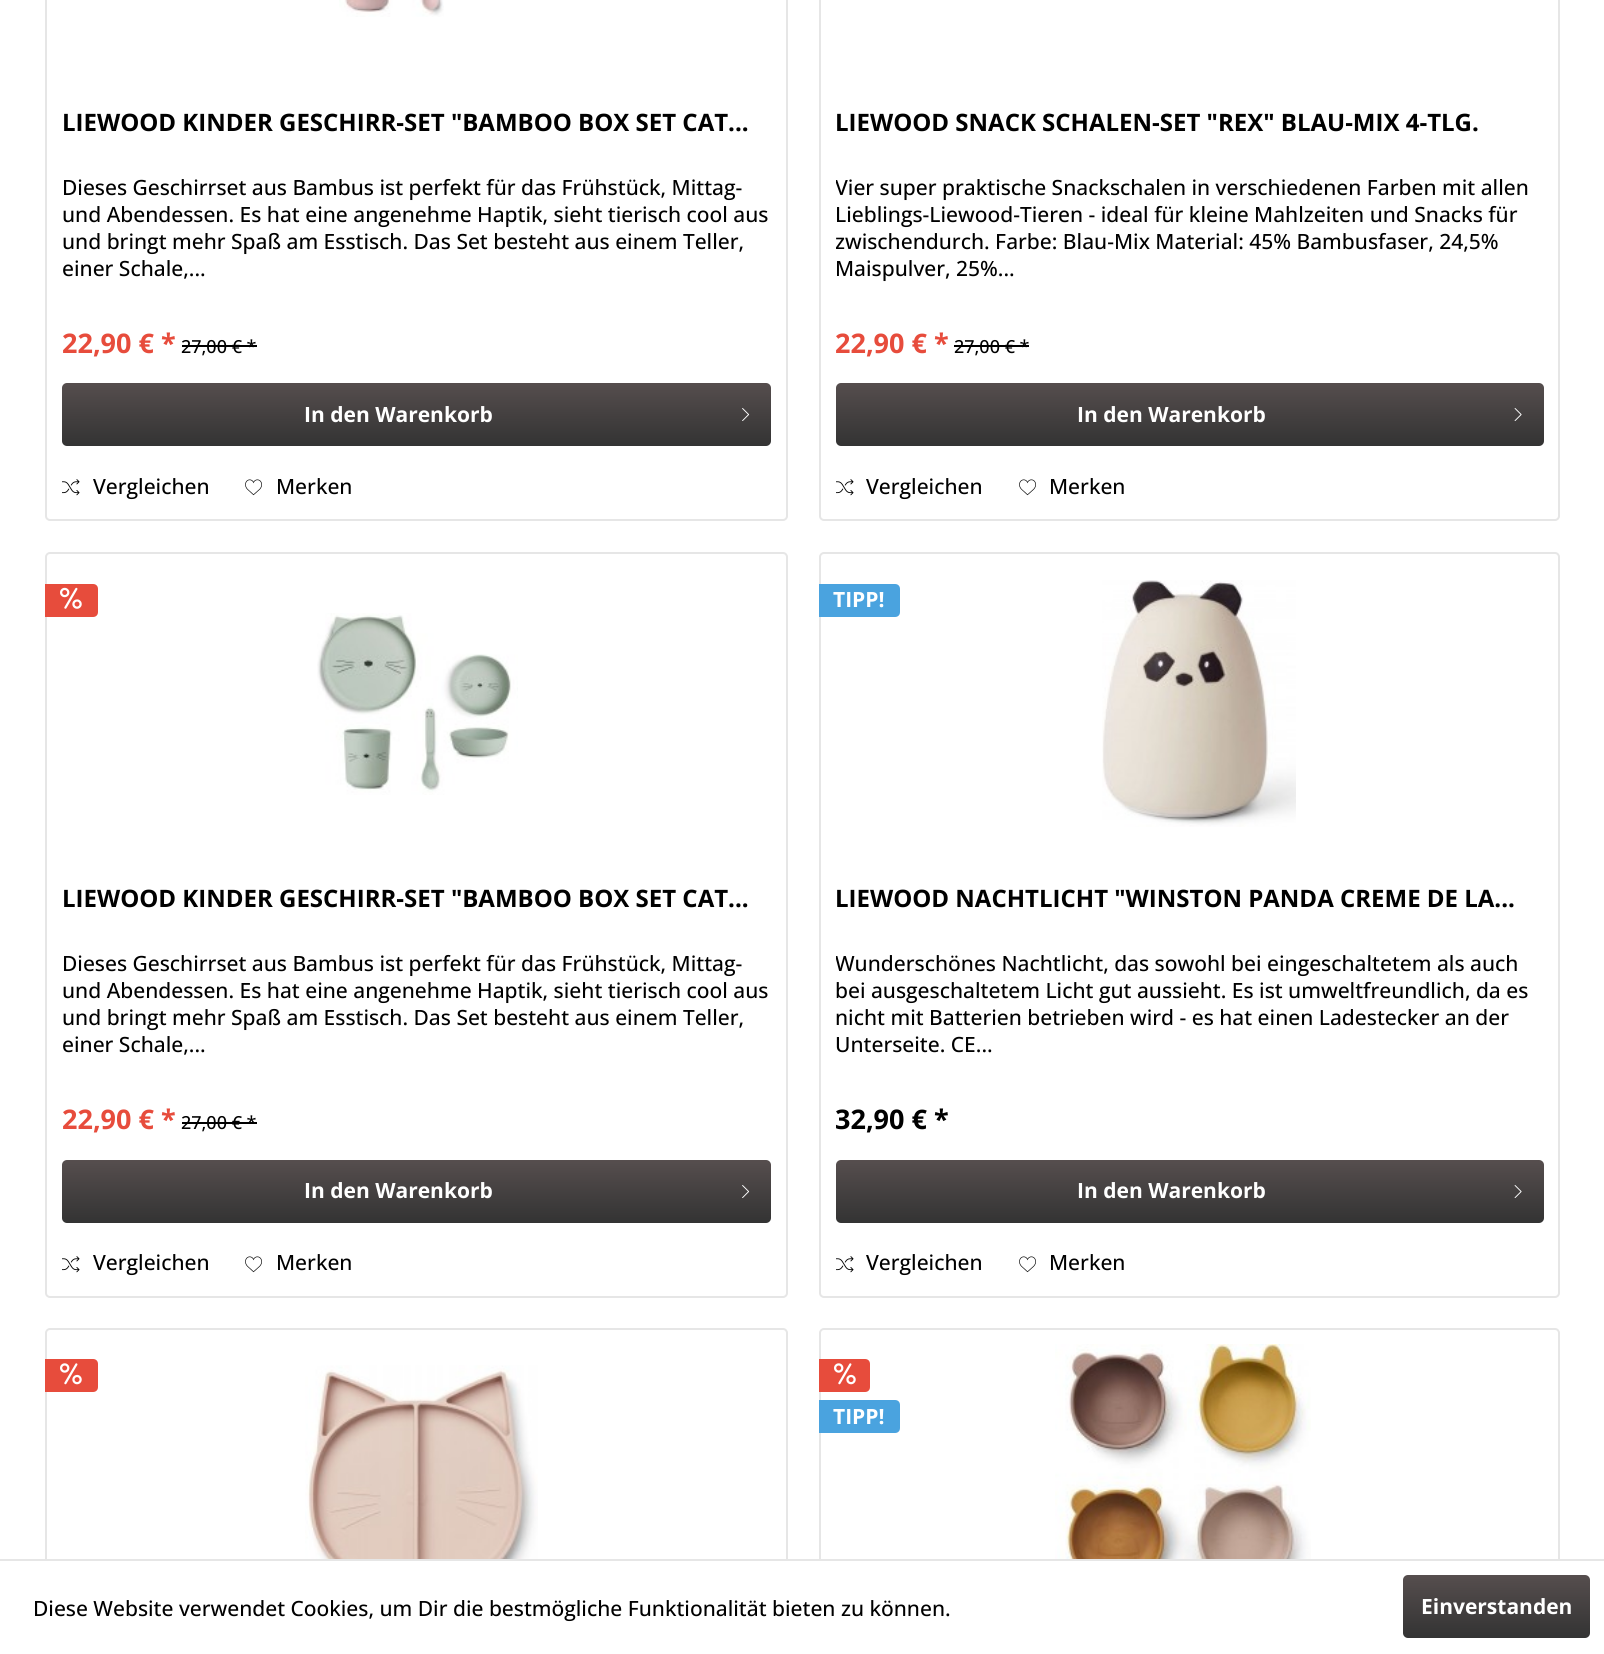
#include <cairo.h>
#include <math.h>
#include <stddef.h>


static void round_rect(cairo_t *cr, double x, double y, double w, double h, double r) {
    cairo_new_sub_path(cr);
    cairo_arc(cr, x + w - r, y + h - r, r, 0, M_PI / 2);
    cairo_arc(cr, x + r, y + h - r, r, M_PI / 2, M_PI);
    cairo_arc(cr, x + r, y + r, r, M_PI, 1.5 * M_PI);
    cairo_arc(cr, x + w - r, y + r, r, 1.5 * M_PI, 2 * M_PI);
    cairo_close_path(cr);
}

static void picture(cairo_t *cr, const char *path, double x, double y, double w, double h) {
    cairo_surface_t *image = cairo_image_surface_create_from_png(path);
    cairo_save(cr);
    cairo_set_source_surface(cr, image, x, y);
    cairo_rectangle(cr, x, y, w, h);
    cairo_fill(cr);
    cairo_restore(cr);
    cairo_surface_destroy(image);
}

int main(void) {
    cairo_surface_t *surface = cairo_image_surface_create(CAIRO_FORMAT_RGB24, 1604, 1654);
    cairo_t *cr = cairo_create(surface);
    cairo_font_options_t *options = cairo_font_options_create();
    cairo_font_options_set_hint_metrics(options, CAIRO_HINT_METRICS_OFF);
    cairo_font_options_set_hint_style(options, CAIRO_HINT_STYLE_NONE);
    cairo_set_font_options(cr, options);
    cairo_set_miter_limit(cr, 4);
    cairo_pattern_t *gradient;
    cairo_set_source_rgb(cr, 1, 1, 1);
    cairo_paint(cr);
    round_rect(cr, 46, -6, 741, 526, 4);
    cairo_set_source_rgb(cr, 0.902, 0.902, 0.902);
    cairo_stroke(cr);
    picture(cr, "img1.png", 339, 0, 105, 17);
    cairo_select_font_face(cr, "Open Sans", CAIRO_FONT_SLANT_NORMAL, CAIRO_FONT_WEIGHT_BOLD);
    cairo_set_font_size(cr, 24);
    cairo_set_source_rgb(cr, 0, 0, 0);
    cairo_move_to(cr, 62, 131);
    cairo_show_text(cr, "LIEWOOD KINDER GESCHIRR-SET \"BAMBOO BOX SET CAT...");
    cairo_select_font_face(cr, "Open Sans Medium", CAIRO_FONT_SLANT_NORMAL, CAIRO_FONT_WEIGHT_NORMAL);
    cairo_set_font_size(cr, 21);
    cairo_move_to(cr, 62, 195);
    cairo_show_text(cr, "Dieses Geschirrset aus Bambus ist perfekt für das Frühstück, Mittag-");
    cairo_move_to(cr, 62, 222);
    cairo_show_text(cr, "und Abendessen. Es hat eine angenehme Haptik, sieht tierisch cool aus");
    cairo_move_to(cr, 62, 249);
    cairo_show_text(cr, "und bringt mehr Spaß am Esstisch. Das Set besteht aus einem Teller,");
    cairo_move_to(cr, 62, 276);
    cairo_show_text(cr, "einer Schale,...");
    cairo_select_font_face(cr, "Open Sans", CAIRO_FONT_SLANT_NORMAL, CAIRO_FONT_WEIGHT_BOLD);
    cairo_set_font_size(cr, 27);
    cairo_set_source_rgb(cr, 0.906, 0.298, 0.235);
    cairo_move_to(cr, 62, 353);
    cairo_show_text(cr, "22,90 € *");
    cairo_select_font_face(cr, "Open Sans Medium", CAIRO_FONT_SLANT_NORMAL, CAIRO_FONT_WEIGHT_NORMAL);
    cairo_set_font_size(cr, 18);
    cairo_set_source_rgb(cr, 0, 0, 0);
    cairo_move_to(cr, 181, 353);
    cairo_show_text(cr, "27,00 € *");
    cairo_rectangle(cr, 182, 345, 75, 2);
    cairo_fill(cr);
    gradient = cairo_pattern_create_linear(416, 382, 416, 446);
    cairo_pattern_add_color_stop_rgba(gradient, 0, 0.337, 0.306, 0.306, 1);
    cairo_pattern_add_color_stop_rgba(gradient, 1, 0.2, 0.2, 0.2, 1);
    cairo_set_source(cr, gradient);
    cairo_pattern_destroy(gradient);
    round_rect(cr, 62, 383, 709, 63, 5);
    cairo_fill(cr);
    cairo_select_font_face(cr, "Open Sans", CAIRO_FONT_SLANT_NORMAL, CAIRO_FONT_WEIGHT_BOLD);
    cairo_set_font_size(cr, 21);
    cairo_set_source_rgb(cr, 1, 1, 1);
    cairo_move_to(cr, 304, 422);
    cairo_show_text(cr, "In den Warenkorb");
    picture(cr, "img2.png", 742, 408, 8, 13);
    picture(cr, "img3.png", 62, 479, 18, 17);
    cairo_select_font_face(cr, "Open Sans Medium", CAIRO_FONT_SLANT_NORMAL, CAIRO_FONT_WEIGHT_NORMAL);
    cairo_set_source_rgb(cr, 0, 0, 0);
    cairo_move_to(cr, 93, 494);
    cairo_show_text(cr, "Vergleichen");
    picture(cr, "img4.png", 245, 479, 17, 17);
    cairo_move_to(cr, 276, 494);
    cairo_show_text(cr, "Merken");
    round_rect(cr, 820, -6, 739, 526, 4);
    cairo_set_source_rgb(cr, 0.902, 0.902, 0.902);
    cairo_stroke(cr);
    cairo_select_font_face(cr, "Open Sans", CAIRO_FONT_SLANT_NORMAL, CAIRO_FONT_WEIGHT_BOLD);
    cairo_set_font_size(cr, 24);
    cairo_set_source_rgb(cr, 0, 0, 0);
    cairo_move_to(cr, 835, 131);
    cairo_show_text(cr, "LIEWOOD SNACK SCHALEN-SET \"REX\" BLAU-MIX 4-TLG.");
    cairo_save(cr);
    cairo_rectangle(cr, 836, 174, 708, 108);
    cairo_clip(cr);
    cairo_select_font_face(cr, "Open Sans Medium", CAIRO_FONT_SLANT_NORMAL, CAIRO_FONT_WEIGHT_NORMAL);
    cairo_set_font_size(cr, 21);
    cairo_move_to(cr, 835, 195);
    cairo_show_text(cr, "Vier super praktische Snackschalen in verschiedenen Farben mit allen");
    cairo_restore(cr);
    cairo_select_font_face(cr, "Open Sans Medium", CAIRO_FONT_SLANT_NORMAL, CAIRO_FONT_WEIGHT_NORMAL);
    cairo_set_font_size(cr, 21);
    cairo_move_to(cr, 835, 222);
    cairo_show_text(cr, "Lieblings-Liewood-Tieren - ideal für kleine Mahlzeiten und Snacks für");
    cairo_save(cr);
    cairo_rectangle(cr, 836, 174, 708, 108);
    cairo_clip(cr);
    cairo_move_to(cr, 835, 249);
    cairo_show_text(cr, "zwischendurch. Farbe: Blau-Mix Material: 45% Bambusfaser, 24,5%");
    cairo_restore(cr);
    cairo_move_to(cr, 835, 276);
    cairo_show_text(cr, "Maispulver, 25%...");
    cairo_select_font_face(cr, "Open Sans", CAIRO_FONT_SLANT_NORMAL, CAIRO_FONT_WEIGHT_BOLD);
    cairo_set_font_size(cr, 27);
    cairo_set_source_rgb(cr, 0.906, 0.298, 0.235);
    cairo_move_to(cr, 835, 353);
    cairo_show_text(cr, "22,90 € *");
    cairo_select_font_face(cr, "Open Sans Medium", CAIRO_FONT_SLANT_NORMAL, CAIRO_FONT_WEIGHT_NORMAL);
    cairo_set_font_size(cr, 18);
    cairo_set_source_rgb(cr, 0, 0, 0);
    cairo_move_to(cr, 954, 353);
    cairo_show_text(cr, "27,00 € *");
    cairo_rectangle(cr, 954, 345, 75, 2);
    cairo_fill(cr);
    gradient = cairo_pattern_create_linear(1190, 382, 1190, 446);
    cairo_pattern_add_color_stop_rgba(gradient, 0, 0.337, 0.306, 0.306, 1);
    cairo_pattern_add_color_stop_rgba(gradient, 1, 0.2, 0.2, 0.2, 1);
    cairo_set_source(cr, gradient);
    cairo_pattern_destroy(gradient);
    round_rect(cr, 836, 383, 708, 63, 5);
    cairo_fill(cr);
    cairo_select_font_face(cr, "Open Sans", CAIRO_FONT_SLANT_NORMAL, CAIRO_FONT_WEIGHT_BOLD);
    cairo_set_font_size(cr, 21);
    cairo_set_source_rgb(cr, 1, 1, 1);
    cairo_move_to(cr, 1077, 422);
    cairo_show_text(cr, "In den Warenkorb");
    picture(cr, "img5.png", 1514, 408, 8, 13);
    picture(cr, "img3.png", 836, 479, 18, 17);
    cairo_select_font_face(cr, "Open Sans Medium", CAIRO_FONT_SLANT_NORMAL, CAIRO_FONT_WEIGHT_NORMAL);
    cairo_set_source_rgb(cr, 0, 0, 0);
    cairo_move_to(cr, 866, 494);
    cairo_show_text(cr, "Vergleichen");
    picture(cr, "img4.png", 1019, 479, 17, 17);
    cairo_move_to(cr, 1049, 494);
    cairo_show_text(cr, "Merken");
    round_rect(cr, 46, 553, 741, 744, 4);
    cairo_set_source_rgb(cr, 0.902, 0.902, 0.902);
    cairo_stroke(cr);
    cairo_set_source_rgb(cr, 0.906, 0.298, 0.235);
    cairo_new_path(cr);
    cairo_move_to(cr, 45, 584);
    cairo_line_to(cr, 93, 584);
    cairo_curve_to(cr, 96, 584, 98, 586, 98, 589);
    cairo_line_to(cr, 98, 612);
    cairo_curve_to(cr, 98, 615, 96, 617, 93, 617);
    cairo_line_to(cr, 45, 617);
    cairo_close_path(cr);
    cairo_fill(cr);
    picture(cr, "img6.png", 60, 587, 22, 22);
    picture(cr, "img7.png", 317, 613, 201, 182);
    cairo_select_font_face(cr, "Open Sans", CAIRO_FONT_SLANT_NORMAL, CAIRO_FONT_WEIGHT_BOLD);
    cairo_set_font_size(cr, 24);
    cairo_set_source_rgb(cr, 0, 0, 0);
    cairo_move_to(cr, 62, 907);
    cairo_show_text(cr, "LIEWOOD KINDER GESCHIRR-SET \"BAMBOO BOX SET CAT...");
    cairo_select_font_face(cr, "Open Sans Medium", CAIRO_FONT_SLANT_NORMAL, CAIRO_FONT_WEIGHT_NORMAL);
    cairo_set_font_size(cr, 21);
    cairo_move_to(cr, 62, 971);
    cairo_show_text(cr, "Dieses Geschirrset aus Bambus ist perfekt für das Frühstück, Mittag-");
    cairo_move_to(cr, 62, 998);
    cairo_show_text(cr, "und Abendessen. Es hat eine angenehme Haptik, sieht tierisch cool aus");
    cairo_move_to(cr, 62, 1025);
    cairo_show_text(cr, "und bringt mehr Spaß am Esstisch. Das Set besteht aus einem Teller,");
    cairo_move_to(cr, 62, 1052);
    cairo_show_text(cr, "einer Schale,...");
    cairo_select_font_face(cr, "Open Sans", CAIRO_FONT_SLANT_NORMAL, CAIRO_FONT_WEIGHT_BOLD);
    cairo_set_font_size(cr, 27);
    cairo_set_source_rgb(cr, 0.906, 0.298, 0.235);
    cairo_move_to(cr, 62, 1129);
    cairo_show_text(cr, "22,90 € *");
    cairo_select_font_face(cr, "Open Sans Medium", CAIRO_FONT_SLANT_NORMAL, CAIRO_FONT_WEIGHT_NORMAL);
    cairo_set_font_size(cr, 18);
    cairo_set_source_rgb(cr, 0, 0, 0);
    cairo_move_to(cr, 181, 1129);
    cairo_show_text(cr, "27,00 € *");
    cairo_rectangle(cr, 182, 1122, 75, 2);
    cairo_fill(cr);
    gradient = cairo_pattern_create_linear(416, 1160, 416, 1223);
    cairo_pattern_add_color_stop_rgba(gradient, 0, 0.337, 0.306, 0.306, 1);
    cairo_pattern_add_color_stop_rgba(gradient, 1, 0.2, 0.2, 0.2, 1);
    cairo_set_source(cr, gradient);
    cairo_pattern_destroy(gradient);
    round_rect(cr, 62, 1160, 709, 63, 5);
    cairo_fill(cr);
    cairo_select_font_face(cr, "Open Sans", CAIRO_FONT_SLANT_NORMAL, CAIRO_FONT_WEIGHT_BOLD);
    cairo_set_font_size(cr, 21);
    cairo_set_source_rgb(cr, 1, 1, 1);
    cairo_move_to(cr, 304, 1198);
    cairo_show_text(cr, "In den Warenkorb");
    picture(cr, "img8.png", 742, 1185, 8, 13);
    picture(cr, "img3.png", 62, 1256, 18, 17);
    cairo_select_font_face(cr, "Open Sans Medium", CAIRO_FONT_SLANT_NORMAL, CAIRO_FONT_WEIGHT_NORMAL);
    cairo_set_source_rgb(cr, 0, 0, 0);
    cairo_move_to(cr, 93, 1270);
    cairo_show_text(cr, "Vergleichen");
    picture(cr, "img4.png", 245, 1256, 17, 17);
    cairo_move_to(cr, 276, 1270);
    cairo_show_text(cr, "Merken");
    round_rect(cr, 820, 553, 739, 744, 4);
    cairo_set_source_rgb(cr, 0.902, 0.902, 0.902);
    cairo_stroke(cr);
    cairo_set_source_rgb(cr, 0.29, 0.639, 0.875);
    cairo_new_path(cr);
    cairo_move_to(cr, 819, 584);
    cairo_line_to(cr, 895, 584);
    cairo_curve_to(cr, 898, 584, 900, 586, 900, 589);
    cairo_line_to(cr, 900, 612);
    cairo_curve_to(cr, 900, 615, 898, 617, 895, 617);
    cairo_line_to(cr, 819, 617);
    cairo_close_path(cr);
    cairo_fill(cr);
    cairo_select_font_face(cr, "Open Sans", CAIRO_FONT_SLANT_NORMAL, CAIRO_FONT_WEIGHT_BOLD);
    cairo_set_source_rgb(cr, 1, 1, 1);
    cairo_move_to(cr, 833, 607);
    cairo_show_text(cr, "TIPP!");
    picture(cr, "img9.png", 1102, 580, 194, 247);
    cairo_set_font_size(cr, 24);
    cairo_set_source_rgb(cr, 0, 0, 0);
    cairo_move_to(cr, 835, 907);
    cairo_show_text(cr, "LIEWOOD NACHTLICHT \"WINSTON PANDA CREME DE LA...");
    cairo_save(cr);
    cairo_rectangle(cr, 836, 951, 708, 108);
    cairo_clip(cr);
    cairo_select_font_face(cr, "Open Sans Medium", CAIRO_FONT_SLANT_NORMAL, CAIRO_FONT_WEIGHT_NORMAL);
    cairo_set_font_size(cr, 21);
    cairo_move_to(cr, 835, 971);
    cairo_show_text(cr, "Wunderschönes Nachtlicht, das sowohl bei eingeschaltetem als auch");
    cairo_restore(cr);
    cairo_select_font_face(cr, "Open Sans Medium", CAIRO_FONT_SLANT_NORMAL, CAIRO_FONT_WEIGHT_NORMAL);
    cairo_set_font_size(cr, 21);
    cairo_move_to(cr, 835, 998);
    cairo_show_text(cr, "bei ausgeschaltetem Licht gut aussieht. Es ist umweltfreundlich, da es");
    cairo_move_to(cr, 835, 1025);
    cairo_show_text(cr, "nicht mit Batterien betrieben wird - es hat einen Ladestecker an der");
    cairo_move_to(cr, 835, 1052);
    cairo_show_text(cr, "Unterseite. CE...");
    cairo_select_font_face(cr, "Open Sans", CAIRO_FONT_SLANT_NORMAL, CAIRO_FONT_WEIGHT_BOLD);
    cairo_set_font_size(cr, 27);
    cairo_move_to(cr, 835, 1129);
    cairo_show_text(cr, "32,90 € *");
    gradient = cairo_pattern_create_linear(1190, 1160, 1190, 1223);
    cairo_pattern_add_color_stop_rgba(gradient, 0, 0.337, 0.306, 0.306, 1);
    cairo_pattern_add_color_stop_rgba(gradient, 1, 0.2, 0.2, 0.2, 1);
    cairo_set_source(cr, gradient);
    cairo_pattern_destroy(gradient);
    round_rect(cr, 836, 1160, 708, 63, 5);
    cairo_fill(cr);
    cairo_set_font_size(cr, 21);
    cairo_set_source_rgb(cr, 1, 1, 1);
    cairo_move_to(cr, 1077, 1198);
    cairo_show_text(cr, "In den Warenkorb");
    picture(cr, "img10.png", 1514, 1185, 8, 13);
    picture(cr, "img3.png", 836, 1256, 18, 17);
    cairo_select_font_face(cr, "Open Sans Medium", CAIRO_FONT_SLANT_NORMAL, CAIRO_FONT_WEIGHT_NORMAL);
    cairo_set_source_rgb(cr, 0, 0, 0);
    cairo_move_to(cr, 866, 1270);
    cairo_show_text(cr, "Vergleichen");
    picture(cr, "img4.png", 1019, 1256, 17, 17);
    cairo_move_to(cr, 1049, 1270);
    cairo_show_text(cr, "Merken");
    round_rect(cr, 46, 1329, 741, 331, 4);
    cairo_set_source_rgb(cr, 0.902, 0.902, 0.902);
    cairo_stroke(cr);
    cairo_set_source_rgb(cr, 0.906, 0.298, 0.235);
    cairo_new_path(cr);
    cairo_move_to(cr, 45, 1359);
    cairo_line_to(cr, 93, 1359);
    cairo_curve_to(cr, 96, 1359, 98, 1361, 98, 1364);
    cairo_line_to(cr, 98, 1387);
    cairo_curve_to(cr, 98, 1390, 96, 1392, 93, 1392);
    cairo_line_to(cr, 45, 1392);
    cairo_close_path(cr);
    cairo_fill(cr);
    picture(cr, "img11.png", 60, 1363, 22, 22);
    picture(cr, "img12.png", 305, 1365, 233, 194);
    round_rect(cr, 820, 1329, 739, 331, 4);
    cairo_set_source_rgb(cr, 0.902, 0.902, 0.902);
    cairo_stroke(cr);
    cairo_set_source_rgb(cr, 0.906, 0.298, 0.235);
    cairo_new_path(cr);
    cairo_move_to(cr, 819, 1359);
    cairo_line_to(cr, 865, 1359);
    cairo_curve_to(cr, 868, 1359, 870, 1361, 870, 1364);
    cairo_line_to(cr, 870, 1387);
    cairo_curve_to(cr, 870, 1390, 868, 1392, 865, 1392);
    cairo_line_to(cr, 819, 1392);
    cairo_close_path(cr);
    cairo_fill(cr);
    picture(cr, "img11.png", 834, 1363, 22, 22);
    cairo_set_source_rgb(cr, 0.29, 0.639, 0.875);
    cairo_new_path(cr);
    cairo_move_to(cr, 819, 1400);
    cairo_line_to(cr, 895, 1400);
    cairo_curve_to(cr, 898, 1400, 900, 1402, 900, 1405);
    cairo_line_to(cr, 900, 1428);
    cairo_curve_to(cr, 900, 1431, 898, 1433, 895, 1433);
    cairo_line_to(cr, 819, 1433);
    cairo_close_path(cr);
    cairo_fill(cr);
    cairo_select_font_face(cr, "Open Sans", CAIRO_FONT_SLANT_NORMAL, CAIRO_FONT_WEIGHT_BOLD);
    cairo_set_source_rgb(cr, 1, 1, 1);
    cairo_move_to(cr, 833, 1424);
    cairo_show_text(cr, "TIPP!");
    picture(cr, "img13.png", 1055, 1344, 256, 215);
    cairo_rectangle(cr, 45, 1561, 1515, 93);
    cairo_fill(cr);
    cairo_set_source_rgb(cr, 0.902, 0.902, 0.902);
    cairo_rectangle(cr, 0, 1559, 1604, 2);
    cairo_fill(cr);
    cairo_select_font_face(cr, "Open Sans Medium", CAIRO_FONT_SLANT_NORMAL, CAIRO_FONT_WEIGHT_NORMAL);
    cairo_set_source_rgb(cr, 0, 0, 0);
    cairo_move_to(cr, 33, 1616);
    cairo_show_text(cr, "Diese Website verwendet Cookies, um Dir die bestmögliche Funktionalität bieten zu können.");
    gradient = cairo_pattern_create_linear(1496, 1575, 1496, 1638);
    cairo_pattern_add_color_stop_rgba(gradient, 0, 0.337, 0.306, 0.306, 1);
    cairo_pattern_add_color_stop_rgba(gradient, 1, 0.2, 0.2, 0.2, 1);
    cairo_set_source(cr, gradient);
    cairo_pattern_destroy(gradient);
    round_rect(cr, 1403, 1575, 187, 63, 5);
    cairo_fill(cr);
    cairo_select_font_face(cr, "Open Sans", CAIRO_FONT_SLANT_NORMAL, CAIRO_FONT_WEIGHT_BOLD);
    cairo_set_source_rgb(cr, 1, 1, 1);
    cairo_move_to(cr, 1421, 1614);
    cairo_show_text(cr, "Einverstanden");
    cairo_surface_write_to_png(surface, "page.png");
    cairo_font_options_destroy(options);
    cairo_destroy(cr);
    cairo_surface_destroy(surface);
    return 0;
}
